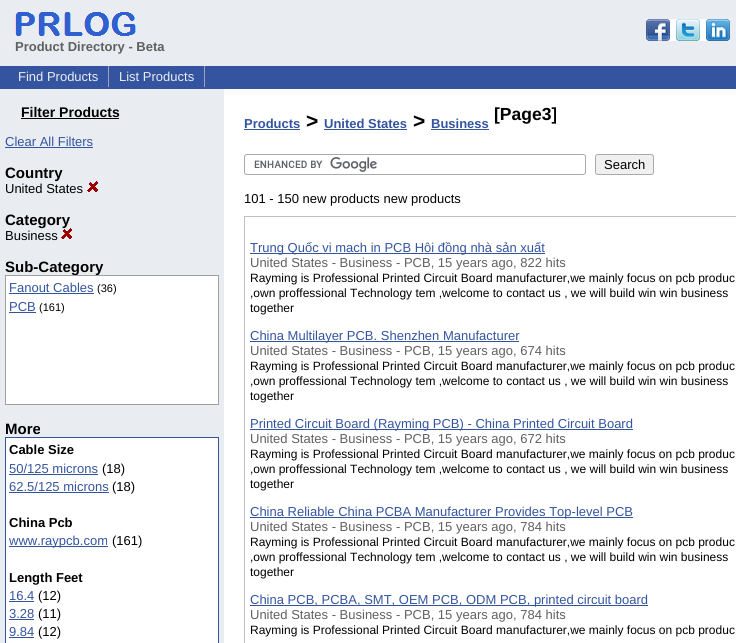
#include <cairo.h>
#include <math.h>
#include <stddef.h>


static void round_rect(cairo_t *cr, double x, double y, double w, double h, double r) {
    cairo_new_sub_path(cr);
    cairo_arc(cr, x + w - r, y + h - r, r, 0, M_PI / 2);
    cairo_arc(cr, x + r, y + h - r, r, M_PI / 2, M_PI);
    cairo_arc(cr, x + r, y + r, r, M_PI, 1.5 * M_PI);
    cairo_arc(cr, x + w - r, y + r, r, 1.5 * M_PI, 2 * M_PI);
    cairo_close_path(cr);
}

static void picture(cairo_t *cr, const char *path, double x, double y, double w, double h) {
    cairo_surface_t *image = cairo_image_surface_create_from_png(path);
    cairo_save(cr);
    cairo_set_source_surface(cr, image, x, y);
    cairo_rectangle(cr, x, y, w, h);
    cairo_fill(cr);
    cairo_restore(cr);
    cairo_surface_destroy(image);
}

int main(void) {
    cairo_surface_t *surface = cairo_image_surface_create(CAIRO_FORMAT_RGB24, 736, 643);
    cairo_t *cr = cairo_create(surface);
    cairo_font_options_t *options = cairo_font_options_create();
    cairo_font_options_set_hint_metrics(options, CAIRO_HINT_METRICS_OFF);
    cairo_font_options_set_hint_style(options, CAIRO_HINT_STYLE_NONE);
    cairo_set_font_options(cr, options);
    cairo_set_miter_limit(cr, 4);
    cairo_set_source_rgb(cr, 1, 1, 1);
    cairo_paint(cr);
    cairo_set_source_rgb(cr, 0.914, 0.929, 0.949);
    cairo_rectangle(cr, 0, 0, 736, 66);
    cairo_fill(cr);
    picture(cr, "img1.png", 646, 19, 84, 22);
    picture(cr, "img2.png", 15, 12, 121, 24);
    cairo_select_font_face(cr, "Liberation Sans", CAIRO_FONT_SLANT_NORMAL, CAIRO_FONT_WEIGHT_BOLD);
    cairo_set_font_size(cr, 13);
    cairo_set_source_rgb(cr, 0.376, 0.376, 0.376);
    cairo_move_to(cr, 15, 51);
    cairo_show_text(cr, "Product Directory - Beta");
    cairo_set_source_rgb(cr, 0.204, 0.329, 0.627);
    cairo_rectangle(cr, 0, 66, 736, 23);
    cairo_fill(cr);
    cairo_set_source_rgb(cr, 0.627, 0.627, 0.753);
    cairo_rectangle(cr, 108, 66, 1, 21);
    cairo_fill(cr);
    cairo_select_font_face(cr, "Liberation Sans", CAIRO_FONT_SLANT_NORMAL, CAIRO_FONT_WEIGHT_NORMAL);
    cairo_set_source_rgb(cr, 0.914, 0.929, 0.949);
    cairo_move_to(cr, 18, 81);
    cairo_show_text(cr, "Find Products");
    cairo_set_source_rgb(cr, 0.627, 0.627, 0.753);
    cairo_rectangle(cr, 204, 66, 1, 21);
    cairo_fill(cr);
    cairo_set_source_rgb(cr, 0.914, 0.929, 0.949);
    cairo_move_to(cr, 119, 81);
    cairo_show_text(cr, "List Products");
    cairo_rectangle(cr, 0, 89, 224, 554);
    cairo_fill(cr);
    cairo_select_font_face(cr, "Liberation Sans", CAIRO_FONT_SLANT_NORMAL, CAIRO_FONT_WEIGHT_BOLD);
    cairo_set_font_size(cr, 14);
    cairo_set_source_rgb(cr, 0, 0, 0);
    cairo_move_to(cr, 21, 117);
    cairo_show_text(cr, "Filter Products");
    cairo_rectangle(cr, 21, 118, 98, 1);
    cairo_fill(cr);
    cairo_select_font_face(cr, "Liberation Sans", CAIRO_FONT_SLANT_NORMAL, CAIRO_FONT_WEIGHT_NORMAL);
    cairo_set_font_size(cr, 13);
    cairo_set_source_rgb(cr, 0.204, 0.329, 0.627);
    cairo_move_to(cr, 5, 146);
    cairo_show_text(cr, "Clear All Filters");
    cairo_rectangle(cr, 5, 147, 88, 1);
    cairo_fill(cr);
    cairo_select_font_face(cr, "Liberation Sans", CAIRO_FONT_SLANT_NORMAL, CAIRO_FONT_WEIGHT_BOLD);
    cairo_set_font_size(cr, 15);
    cairo_set_source_rgb(cr, 0, 0, 0);
    cairo_move_to(cr, 5, 178);
    cairo_show_text(cr, "Country");
    cairo_select_font_face(cr, "Liberation Sans", CAIRO_FONT_SLANT_NORMAL, CAIRO_FONT_WEIGHT_NORMAL);
    cairo_set_font_size(cr, 13);
    cairo_move_to(cr, 5, 193);
    cairo_show_text(cr, "United States");
    picture(cr, "img3.png", 87, 181, 11, 11);
    cairo_select_font_face(cr, "Liberation Sans", CAIRO_FONT_SLANT_NORMAL, CAIRO_FONT_WEIGHT_BOLD);
    cairo_set_font_size(cr, 15);
    cairo_move_to(cr, 5, 225);
    cairo_show_text(cr, "Category");
    cairo_select_font_face(cr, "Liberation Sans", CAIRO_FONT_SLANT_NORMAL, CAIRO_FONT_WEIGHT_NORMAL);
    cairo_set_font_size(cr, 13);
    cairo_move_to(cr, 5, 240);
    cairo_show_text(cr, "Business");
    picture(cr, "img4.png", 61, 228, 11, 11);
    cairo_select_font_face(cr, "Liberation Sans", CAIRO_FONT_SLANT_NORMAL, CAIRO_FONT_WEIGHT_BOLD);
    cairo_set_font_size(cr, 15);
    cairo_move_to(cr, 5, 272);
    cairo_show_text(cr, "Sub-Category");
    cairo_set_source_rgb(cr, 1, 1, 1);
    cairo_rectangle(cr, 5.5, 275.5, 213, 129);
    cairo_fill_preserve(cr);
    cairo_set_source_rgb(cr, 0.627, 0.627, 0.627);
    cairo_set_line_width(cr, 1);
    cairo_stroke(cr);
    cairo_select_font_face(cr, "Liberation Sans", CAIRO_FONT_SLANT_NORMAL, CAIRO_FONT_WEIGHT_NORMAL);
    cairo_set_font_size(cr, 13);
    cairo_set_source_rgb(cr, 0.204, 0.329, 0.627);
    cairo_move_to(cr, 9, 292);
    cairo_show_text(cr, "Fanout Cables");
    cairo_rectangle(cr, 9, 293, 85, 1);
    cairo_fill(cr);
    cairo_set_font_size(cr, 11);
    cairo_set_source_rgb(cr, 0, 0, 0);
    cairo_move_to(cr, 97, 292);
    cairo_show_text(cr, "(36)");
    cairo_set_font_size(cr, 13);
    cairo_set_source_rgb(cr, 0.204, 0.329, 0.627);
    cairo_move_to(cr, 9, 311);
    cairo_show_text(cr, "PCB");
    cairo_rectangle(cr, 9, 312, 27, 1);
    cairo_fill(cr);
    cairo_set_font_size(cr, 11);
    cairo_set_source_rgb(cr, 0, 0, 0);
    cairo_move_to(cr, 39, 311);
    cairo_show_text(cr, "(161)");
    cairo_select_font_face(cr, "Liberation Sans", CAIRO_FONT_SLANT_NORMAL, CAIRO_FONT_WEIGHT_BOLD);
    cairo_set_font_size(cr, 15);
    cairo_move_to(cr, 5, 434);
    cairo_show_text(cr, "More");
    cairo_set_source_rgb(cr, 1, 1, 1);
    cairo_rectangle(cr, 5.5, 437.5, 213, 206);
    cairo_fill_preserve(cr);
    cairo_set_source_rgb(cr, 0.204, 0.329, 0.627);
    cairo_stroke(cr);
    cairo_set_font_size(cr, 13);
    cairo_set_source_rgb(cr, 0, 0, 0);
    cairo_move_to(cr, 9, 454);
    cairo_show_text(cr, "Cable Size");
    cairo_select_font_face(cr, "Liberation Sans", CAIRO_FONT_SLANT_NORMAL, CAIRO_FONT_WEIGHT_NORMAL);
    cairo_set_source_rgb(cr, 0.204, 0.329, 0.627);
    cairo_move_to(cr, 9, 473);
    cairo_show_text(cr, "50/125 microns");
    cairo_rectangle(cr, 9, 474, 89, 1);
    cairo_fill(cr);
    cairo_set_source_rgb(cr, 0, 0, 0);
    cairo_move_to(cr, 102, 473);
    cairo_show_text(cr, "(18)");
    cairo_set_source_rgb(cr, 0.204, 0.329, 0.627);
    cairo_move_to(cr, 9, 491);
    cairo_show_text(cr, "62.5/125 microns");
    cairo_rectangle(cr, 9, 492, 100, 1);
    cairo_fill(cr);
    cairo_set_source_rgb(cr, 0, 0, 0);
    cairo_move_to(cr, 112, 491);
    cairo_show_text(cr, "(18)");
    cairo_select_font_face(cr, "Liberation Sans", CAIRO_FONT_SLANT_NORMAL, CAIRO_FONT_WEIGHT_BOLD);
    cairo_move_to(cr, 9, 527);
    cairo_show_text(cr, "China Pcb");
    cairo_set_source_rgb(cr, 0.204, 0.329, 0.627);
    cairo_rectangle(cr, 9, 546, 99, 1);
    cairo_fill(cr);
    cairo_select_font_face(cr, "Liberation Sans", CAIRO_FONT_SLANT_NORMAL, CAIRO_FONT_WEIGHT_NORMAL);
    cairo_move_to(cr, 9, 545);
    cairo_show_text(cr, "www.raypcb.com");
    cairo_set_source_rgb(cr, 0, 0, 0);
    cairo_move_to(cr, 112, 545);
    cairo_show_text(cr, "(161)");
    cairo_select_font_face(cr, "Liberation Sans", CAIRO_FONT_SLANT_NORMAL, CAIRO_FONT_WEIGHT_BOLD);
    cairo_move_to(cr, 9, 582);
    cairo_show_text(cr, "Length Feet");
    cairo_select_font_face(cr, "Liberation Sans", CAIRO_FONT_SLANT_NORMAL, CAIRO_FONT_WEIGHT_NORMAL);
    cairo_set_source_rgb(cr, 0.204, 0.329, 0.627);
    cairo_move_to(cr, 9, 600);
    cairo_show_text(cr, "16.4");
    cairo_rectangle(cr, 9, 601, 25, 1);
    cairo_fill(cr);
    cairo_set_source_rgb(cr, 0, 0, 0);
    cairo_move_to(cr, 38, 600);
    cairo_show_text(cr, "(12)");
    cairo_set_source_rgb(cr, 0.204, 0.329, 0.627);
    cairo_move_to(cr, 9, 618);
    cairo_show_text(cr, "3.28");
    cairo_rectangle(cr, 9, 619, 25, 1);
    cairo_fill(cr);
    cairo_set_source_rgb(cr, 0, 0, 0);
    cairo_move_to(cr, 38, 618);
    cairo_show_text(cr, "(11)");
    cairo_set_source_rgb(cr, 0.204, 0.329, 0.627);
    cairo_move_to(cr, 9, 636);
    cairo_show_text(cr, "9.84");
    cairo_rectangle(cr, 9, 637, 25, 1);
    cairo_fill(cr);
    cairo_set_source_rgb(cr, 0, 0, 0);
    cairo_move_to(cr, 38, 636);
    cairo_show_text(cr, "(12)");
    cairo_select_font_face(cr, "Liberation Sans", CAIRO_FONT_SLANT_NORMAL, CAIRO_FONT_WEIGHT_BOLD);
    cairo_set_source_rgb(cr, 0.204, 0.329, 0.627);
    cairo_move_to(cr, 244, 128);
    cairo_show_text(cr, "Products");
    cairo_rectangle(cr, 244, 129, 56, 1);
    cairo_fill(cr);
    cairo_set_font_size(cr, 21);
    cairo_set_source_rgb(cr, 0, 0, 0);
    cairo_move_to(cr, 306, 128);
    cairo_show_text(cr, ">");
    cairo_set_font_size(cr, 13);
    cairo_set_source_rgb(cr, 0.204, 0.329, 0.627);
    cairo_move_to(cr, 324, 128);
    cairo_show_text(cr, "United States");
    cairo_rectangle(cr, 324, 129, 83, 1);
    cairo_fill(cr);
    cairo_set_font_size(cr, 21);
    cairo_set_source_rgb(cr, 0, 0, 0);
    cairo_move_to(cr, 413, 128);
    cairo_show_text(cr, ">");
    cairo_set_font_size(cr, 13);
    cairo_set_source_rgb(cr, 0.204, 0.329, 0.627);
    cairo_move_to(cr, 431, 128);
    cairo_show_text(cr, "Business");
    cairo_rectangle(cr, 431, 129, 58, 1);
    cairo_fill(cr);
    cairo_set_font_size(cr, 17.5);
    cairo_set_source_rgb(cr, 0, 0, 0);
    cairo_move_to(cr, 494, 120);
    cairo_show_text(cr, "[Page3]");
    picture(cr, "img5.png", 254, 157, 123, 15);
    round_rect(cr, 244.5, 154.5, 341, 20, 2.5);
    cairo_set_source_rgb(cr, 0.667, 0.667, 0.667);
    cairo_stroke(cr);
    cairo_set_source_rgb(cr, 0.941, 0.941, 0.941);
    round_rect(cr, 595.5, 154.5, 58, 20, 2.5);
    cairo_fill_preserve(cr);
    cairo_set_source_rgb(cr, 0.667, 0.667, 0.667);
    cairo_stroke(cr);
    cairo_select_font_face(cr, "Liberation Sans", CAIRO_FONT_SLANT_NORMAL, CAIRO_FONT_WEIGHT_NORMAL);
    cairo_set_font_size(cr, 13);
    cairo_set_source_rgb(cr, 0, 0, 0);
    cairo_move_to(cr, 604, 169);
    cairo_show_text(cr, "Search");
    cairo_move_to(cr, 244, 203);
    cairo_show_text(cr, "101 - 150 new products new products");
    cairo_rectangle(cr, 244.5, 216.5, 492, 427);
    cairo_set_source_rgb(cr, 0.753, 0.753, 0.753);
    cairo_stroke(cr);
    cairo_set_source_rgb(cr, 0.204, 0.329, 0.627);
    cairo_rectangle(cr, 250, 253, 295, 1);
    cairo_fill(cr);
    cairo_move_to(cr, 250, 252);
    cairo_show_text(cr, "Trung Quốc vi mạch in PCB Hội đồng nhà sản xuất");
    cairo_set_source_rgb(cr, 0.376, 0.376, 0.376);
    cairo_move_to(cr, 250, 267);
    cairo_show_text(cr, "United States - Business - PCB, 15 years ago, 822 hits");
    cairo_set_font_size(cr, 12);
    cairo_set_source_rgb(cr, 0, 0, 0);
    cairo_move_to(cr, 250, 282);
    cairo_show_text(cr, "Rayming is Professional Printed Circuit Board manufacturer,we mainly focus on pcb produc");
    cairo_move_to(cr, 250, 297);
    cairo_show_text(cr, ",own proffessional Technology tem ,welcome to contact us , we will build win win business");
    cairo_move_to(cr, 250, 312);
    cairo_show_text(cr, "together");
    cairo_set_source_rgb(cr, 0.204, 0.329, 0.627);
    cairo_rectangle(cr, 250, 341, 269, 1);
    cairo_fill(cr);
    cairo_set_font_size(cr, 13);
    cairo_move_to(cr, 250, 340);
    cairo_show_text(cr, "China Multilayer PCB. Shenzhen Manufacturer");
    cairo_set_source_rgb(cr, 0.376, 0.376, 0.376);
    cairo_move_to(cr, 250, 355);
    cairo_show_text(cr, "United States - Business - PCB, 15 years ago, 674 hits");
    cairo_set_font_size(cr, 12);
    cairo_set_source_rgb(cr, 0, 0, 0);
    cairo_move_to(cr, 250, 370);
    cairo_show_text(cr, "Rayming is Professional Printed Circuit Board manufacturer,we mainly focus on pcb produc");
    cairo_move_to(cr, 250, 385);
    cairo_show_text(cr, ",own proffessional Technology tem ,welcome to contact us , we will build win win business");
    cairo_move_to(cr, 250, 400);
    cairo_show_text(cr, "together");
    cairo_set_source_rgb(cr, 0.204, 0.329, 0.627);
    cairo_rectangle(cr, 250, 429, 383, 1);
    cairo_fill(cr);
    cairo_set_font_size(cr, 13);
    cairo_move_to(cr, 250, 428);
    cairo_show_text(cr, "Printed Circuit Board (Rayming PCB) - China Printed Circuit Board");
    cairo_set_source_rgb(cr, 0.376, 0.376, 0.376);
    cairo_move_to(cr, 250, 443);
    cairo_show_text(cr, "United States - Business - PCB, 15 years ago, 672 hits");
    cairo_set_font_size(cr, 12);
    cairo_set_source_rgb(cr, 0, 0, 0);
    cairo_move_to(cr, 250, 458);
    cairo_show_text(cr, "Rayming is Professional Printed Circuit Board manufacturer,we mainly focus on pcb produc");
    cairo_move_to(cr, 250, 473);
    cairo_show_text(cr, ",own proffessional Technology tem ,welcome to contact us , we will build win win business");
    cairo_move_to(cr, 250, 488);
    cairo_show_text(cr, "together");
    cairo_set_source_rgb(cr, 0.204, 0.329, 0.627);
    cairo_rectangle(cr, 250, 517, 383, 1);
    cairo_fill(cr);
    cairo_set_font_size(cr, 13);
    cairo_move_to(cr, 250, 516);
    cairo_show_text(cr, "China Reliable China PCBA Manufacturer Provides Top-level PCB");
    cairo_set_source_rgb(cr, 0.376, 0.376, 0.376);
    cairo_move_to(cr, 250, 531);
    cairo_show_text(cr, "United States - Business - PCB, 15 years ago, 784 hits");
    cairo_set_font_size(cr, 12);
    cairo_set_source_rgb(cr, 0, 0, 0);
    cairo_move_to(cr, 250, 546);
    cairo_show_text(cr, "Rayming is Professional Printed Circuit Board manufacturer,we mainly focus on pcb produc");
    cairo_move_to(cr, 250, 561);
    cairo_show_text(cr, ",own proffessional Technology tem ,welcome to contact us , we will build win win business");
    cairo_move_to(cr, 250, 576);
    cairo_show_text(cr, "together");
    cairo_set_source_rgb(cr, 0.204, 0.329, 0.627);
    cairo_rectangle(cr, 250, 605, 398, 1);
    cairo_fill(cr);
    cairo_set_font_size(cr, 13);
    cairo_move_to(cr, 250, 604);
    cairo_show_text(cr, "China PCB, PCBA, SMT, OEM PCB, ODM PCB, printed circuit board");
    cairo_set_source_rgb(cr, 0.376, 0.376, 0.376);
    cairo_move_to(cr, 250, 619);
    cairo_show_text(cr, "United States - Business - PCB, 15 years ago, 784 hits");
    cairo_set_font_size(cr, 12);
    cairo_set_source_rgb(cr, 0, 0, 0);
    cairo_move_to(cr, 250, 634);
    cairo_show_text(cr, "Rayming is Professional Printed Circuit Board manufacturer,we mainly focus on pcb produc");
    cairo_surface_write_to_png(surface, "page.png");
    cairo_font_options_destroy(options);
    cairo_destroy(cr);
    cairo_surface_destroy(surface);
    return 0;
}
